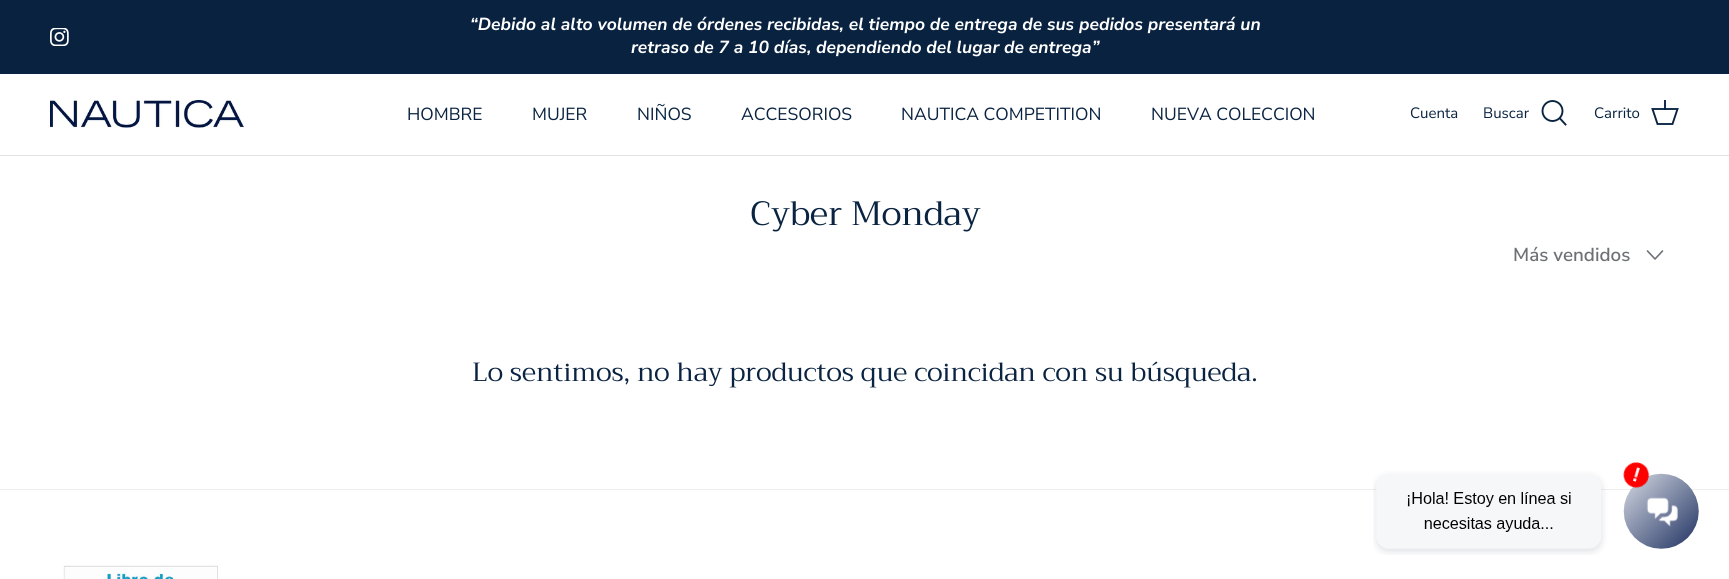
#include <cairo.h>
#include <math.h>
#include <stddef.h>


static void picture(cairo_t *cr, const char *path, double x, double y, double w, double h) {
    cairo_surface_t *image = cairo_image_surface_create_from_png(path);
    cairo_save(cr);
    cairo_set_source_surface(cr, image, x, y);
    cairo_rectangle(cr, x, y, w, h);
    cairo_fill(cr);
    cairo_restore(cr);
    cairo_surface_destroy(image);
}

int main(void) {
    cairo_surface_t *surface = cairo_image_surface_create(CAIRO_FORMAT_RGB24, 1729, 579);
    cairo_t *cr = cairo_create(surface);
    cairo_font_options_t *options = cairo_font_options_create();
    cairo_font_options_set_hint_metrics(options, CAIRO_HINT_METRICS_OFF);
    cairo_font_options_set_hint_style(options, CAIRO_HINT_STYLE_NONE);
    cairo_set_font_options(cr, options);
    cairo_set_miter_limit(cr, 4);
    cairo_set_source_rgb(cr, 1, 1, 1);
    cairo_paint(cr);
    cairo_set_source_rgb(cr, 0.039, 0.133, 0.251);
    cairo_rectangle(cr, 0, 0, 1729, 74);
    cairo_fill(cr);
    picture(cr, "img1.png", 50, 28, 19, 18);
    cairo_select_font_face(cr, "Nunito Sans", CAIRO_FONT_SLANT_ITALIC, CAIRO_FONT_WEIGHT_BOLD);
    cairo_set_font_size(cr, 17.5);
    cairo_set_source_rgb(cr, 1, 1, 1);
    cairo_move_to(cr, 470, 30);
    cairo_show_text(cr, "“Debido al alto volumen de órdenes recibidas, el tiempo de entrega de sus pedidos presentará un");
    cairo_move_to(cr, 631, 53);
    cairo_show_text(cr, "retraso de 7 a 10 días, dependiendo del lugar de entrega”");
    cairo_set_source_rgb(cr, 0.886, 0.886, 0.886);
    cairo_rectangle(cr, 0, 155, 1729, 1);
    cairo_fill(cr);
    picture(cr, "img2.png", 50, 100, 194, 28);
    cairo_select_font_face(cr, "Nunito Sans", CAIRO_FONT_SLANT_NORMAL, CAIRO_FONT_WEIGHT_NORMAL);
    cairo_set_source_rgb(cr, 0.039, 0.137, 0.255);
    cairo_move_to(cr, 407, 120);
    cairo_show_text(cr, "HOMBRE");
    cairo_move_to(cr, 532, 120);
    cairo_show_text(cr, "MUJER");
    cairo_move_to(cr, 637, 120);
    cairo_show_text(cr, "NIÑOS");
    cairo_move_to(cr, 741, 120);
    cairo_show_text(cr, "ACCESORIOS");
    cairo_move_to(cr, 901, 120);
    cairo_show_text(cr, "NAUTICA COMPETITION");
    cairo_move_to(cr, 1151, 120);
    cairo_show_text(cr, "NUEVA COLECCION");
    cairo_set_font_size(cr, 15);
    cairo_move_to(cr, 1410, 118);
    cairo_show_text(cr, "Cuenta");
    cairo_move_to(cr, 1483, 118);
    cairo_show_text(cr, "Buscar");
    cairo_new_path(cr);
    cairo_arc(cr, 1552.5, 111, 10, 0, 2 * M_PI);
    cairo_set_line_width(cr, 1.9);
    cairo_stroke(cr);
    cairo_new_path(cr);
    cairo_move_to(cr, 1560, 118.5);
    cairo_line_to(cr, 1565.5, 124.5);
    cairo_set_line_cap(cr, CAIRO_LINE_CAP_SQUARE);
    cairo_stroke(cr);
    cairo_move_to(cr, 1594, 118);
    cairo_show_text(cr, "Carrito");
    cairo_new_path(cr);
    cairo_move_to(cr, 1652.5, 109);
    cairo_line_to(cr, 1677.5, 109);
    cairo_line_to(cr, 1672.5, 124);
    cairo_line_to(cr, 1657.5, 124);
    cairo_close_path(cr);
    cairo_set_line_cap(cr, CAIRO_LINE_CAP_BUTT);
    cairo_stroke(cr);
    cairo_set_source_rgba(cr, 0.039, 0.137, 0.255, 0.95);
    cairo_rectangle(cr, 1664, 100, 2, 10);
    cairo_fill(cr);
    cairo_select_font_face(cr, "Trirong", CAIRO_FONT_SLANT_NORMAL, CAIRO_FONT_WEIGHT_NORMAL);
    cairo_set_font_size(cr, 33.75);
    cairo_set_source_rgb(cr, 0.039, 0.137, 0.255);
    cairo_move_to(cr, 750, 225);
    cairo_show_text(cr, "Cyber Monday");
    cairo_select_font_face(cr, "Nunito Sans SemiBold", CAIRO_FONT_SLANT_NORMAL, CAIRO_FONT_WEIGHT_NORMAL);
    cairo_set_font_size(cr, 18.75);
    cairo_set_source_rgb(cr, 0.427, 0.443, 0.459);
    cairo_move_to(cr, 1513, 261);
    cairo_show_text(cr, "Más vendidos");
    cairo_new_path(cr);
    cairo_move_to(cr, 1647.5, 251);
    cairo_line_to(cr, 1655, 259);
    cairo_line_to(cr, 1662.5, 251);
    cairo_set_line_width(cr, 1.6);
    cairo_set_line_cap(cr, CAIRO_LINE_CAP_ROUND);
    cairo_set_line_join(cr, CAIRO_LINE_JOIN_ROUND);
    cairo_stroke(cr);
    cairo_select_font_face(cr, "Trirong", CAIRO_FONT_SLANT_NORMAL, CAIRO_FONT_WEIGHT_NORMAL);
    cairo_set_font_size(cr, 26.25);
    cairo_set_source_rgb(cr, 0.039, 0.137, 0.255);
    cairo_move_to(cr, 472, 381);
    cairo_show_text(cr, "Lo sentimos, no hay productos que coincidan con su búsqueda.");
    cairo_set_source_rgb(cr, 0.933, 0.933, 0.933);
    cairo_rectangle(cr, 0, 489, 1729, 1);
    cairo_fill(cr);
    picture(cr, "img3.png", 1373, 461, 326, 94);
    picture(cr, "img4.png", 63, 565, 155, 14);
    cairo_surface_write_to_png(surface, "page.png");
    cairo_font_options_destroy(options);
    cairo_destroy(cr);
    cairo_surface_destroy(surface);
    return 0;
}
